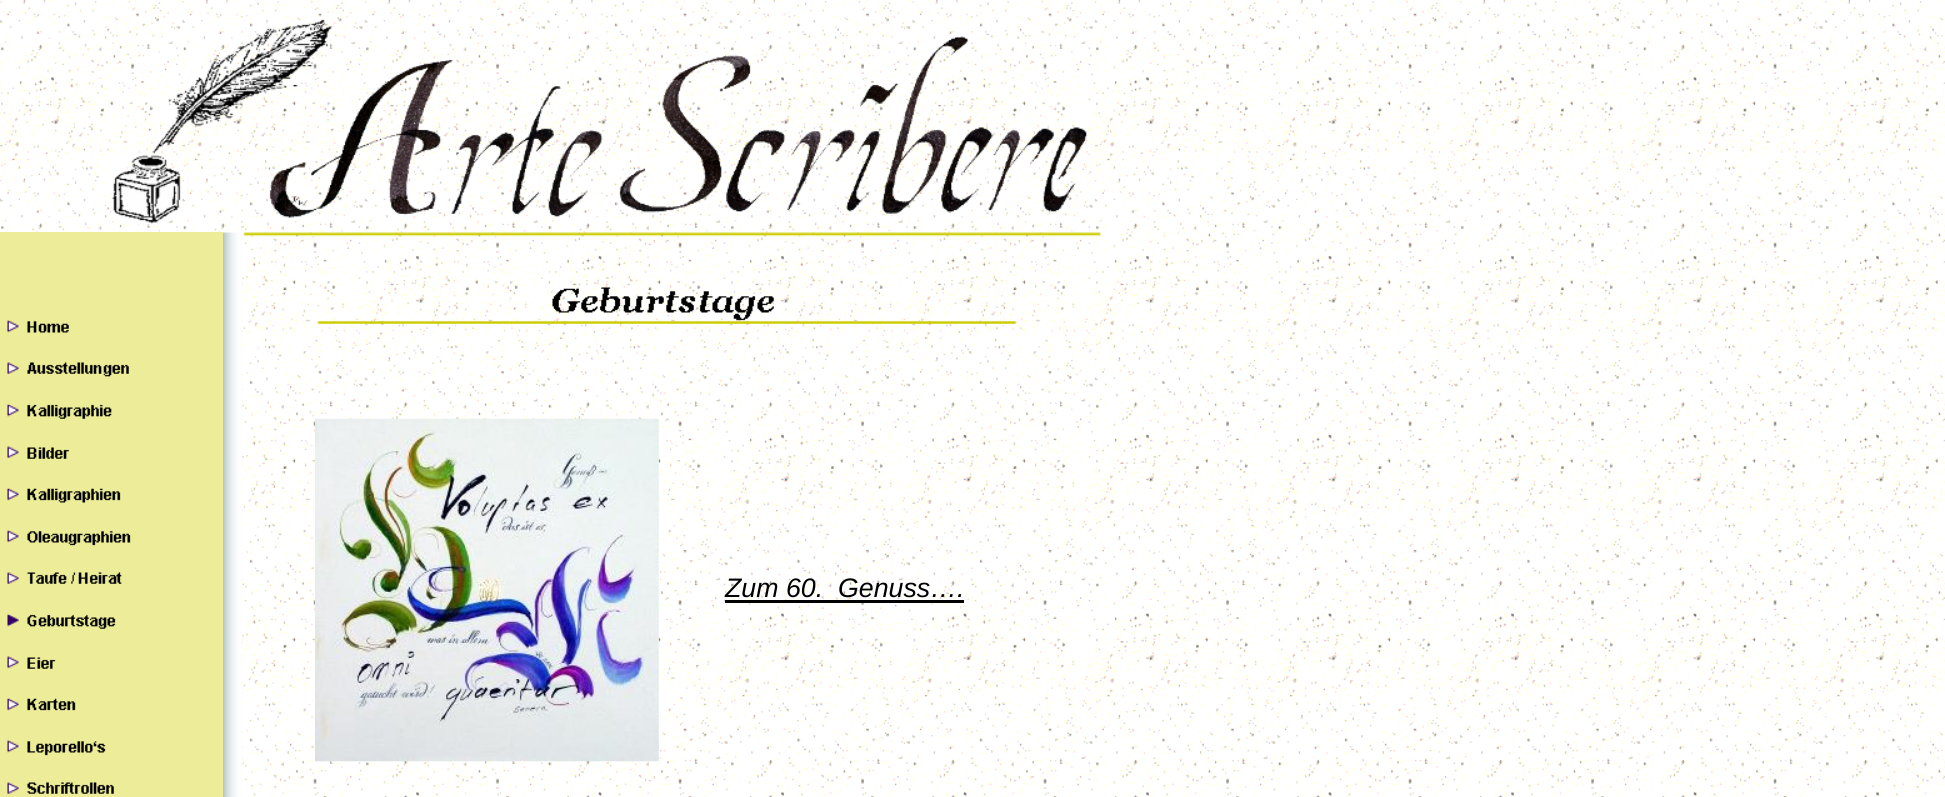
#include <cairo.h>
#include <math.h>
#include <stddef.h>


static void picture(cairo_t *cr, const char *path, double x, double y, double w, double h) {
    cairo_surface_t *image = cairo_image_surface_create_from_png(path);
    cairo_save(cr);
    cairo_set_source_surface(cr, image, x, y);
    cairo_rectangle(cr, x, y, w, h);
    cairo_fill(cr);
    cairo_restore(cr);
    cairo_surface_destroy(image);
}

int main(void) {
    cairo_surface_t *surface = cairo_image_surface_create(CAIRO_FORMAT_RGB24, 1945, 797);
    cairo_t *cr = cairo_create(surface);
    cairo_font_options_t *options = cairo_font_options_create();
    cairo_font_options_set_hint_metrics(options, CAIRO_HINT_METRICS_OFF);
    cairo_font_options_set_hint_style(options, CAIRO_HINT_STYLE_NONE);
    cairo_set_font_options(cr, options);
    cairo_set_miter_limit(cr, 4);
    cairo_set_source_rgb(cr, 1, 1, 1);
    cairo_paint(cr);
    picture(cr, "img1.png", 0, 0, 1945, 797);
    picture(cr, "img2.png", 111, 19, 991, 218);
    cairo_set_source_rgb(cr, 0.922, 0.922, 0.6);
    cairo_rectangle(cr, 0, 232, 223, 565);
    cairo_fill(cr);
    picture(cr, "img3.png", 223, 232, 20, 565);
    picture(cr, "img4.png", 317, 287, 700, 37);
    picture(cr, "img5.png", 7, 320, 124, 474);
    picture(cr, "img6.png", 315, 418, 344, 344);
    cairo_select_font_face(cr, "Liberation Sans", CAIRO_FONT_SLANT_ITALIC, CAIRO_FONT_WEIGHT_NORMAL);
    cairo_set_font_size(cr, 26.75);
    cairo_set_source_rgb(cr, 0, 0, 0);
    cairo_move_to(cr, 725, 597);
    cairo_show_text(cr, "Zum 60.  Genuss….");
    cairo_rectangle(cr, 725, 600, 239, 3);
    cairo_fill(cr);
    cairo_surface_write_to_png(surface, "page.png");
    cairo_font_options_destroy(options);
    cairo_destroy(cr);
    cairo_surface_destroy(surface);
    return 0;
}
